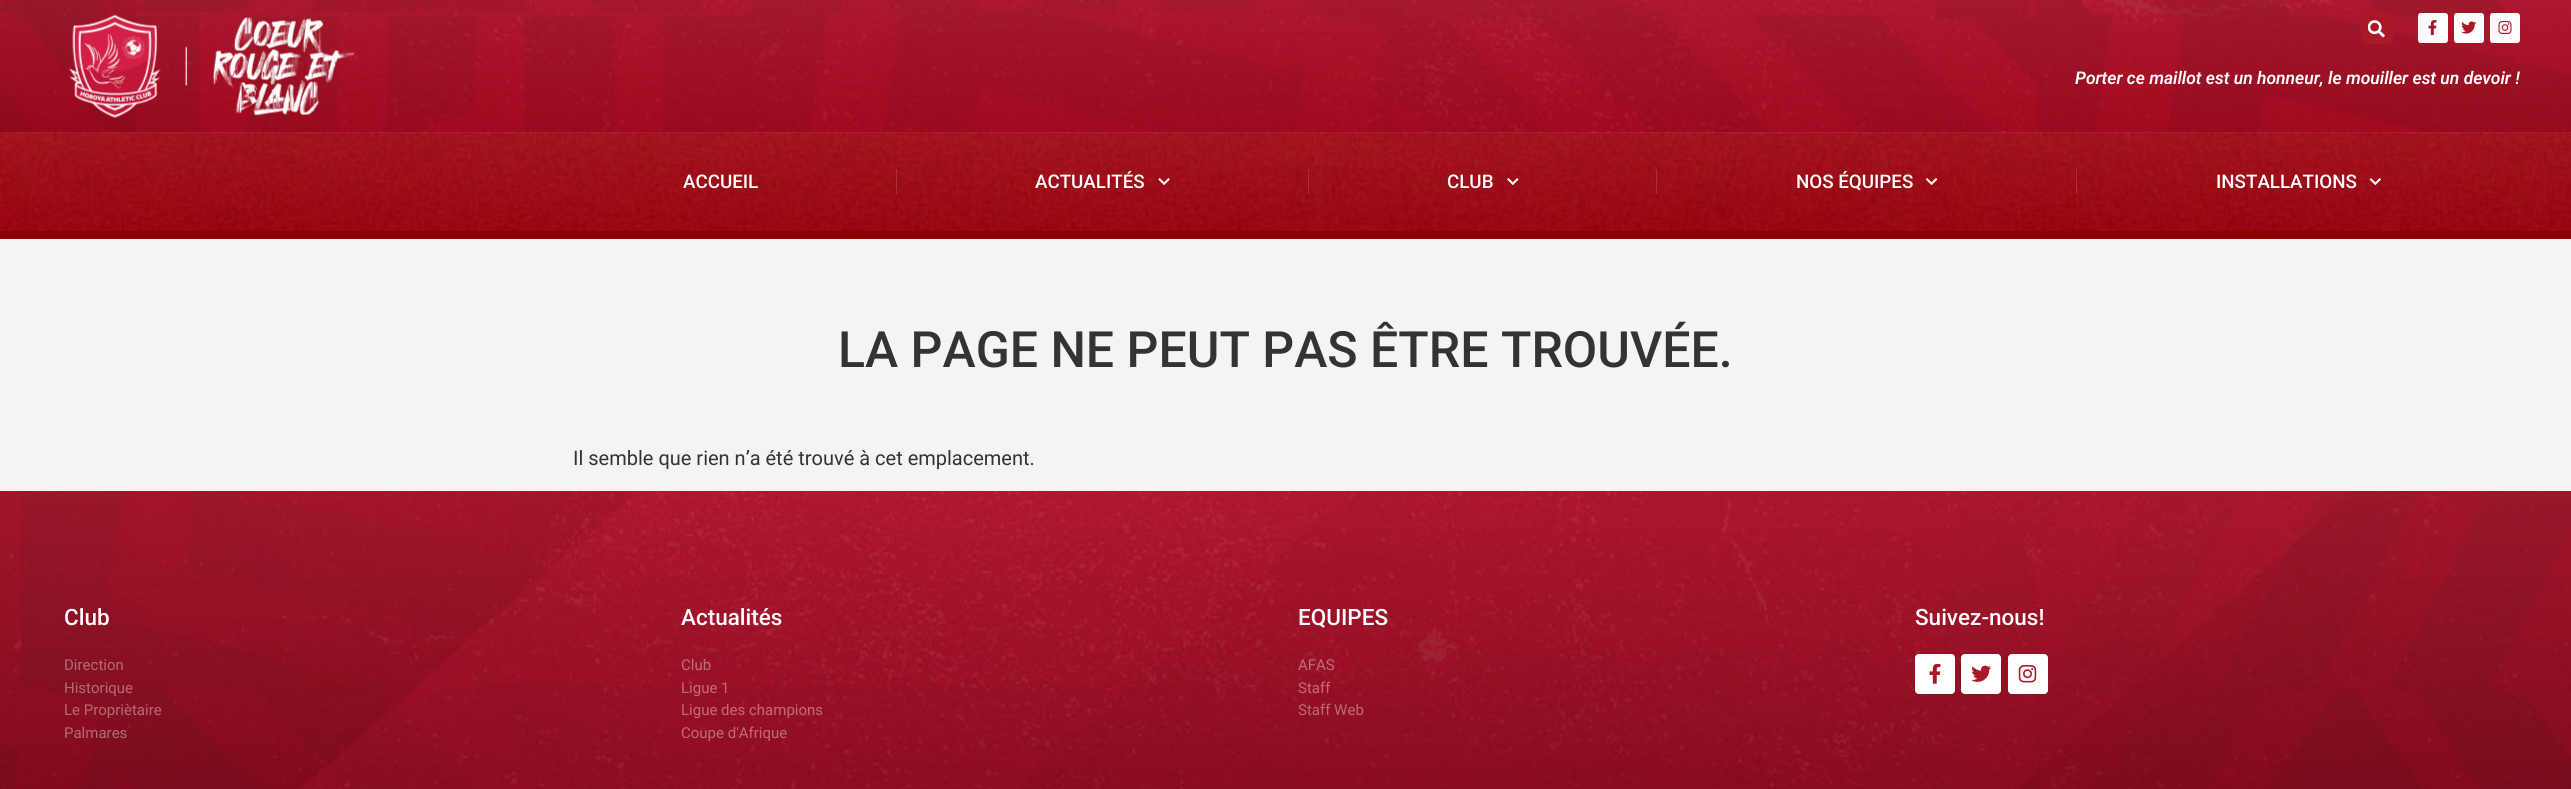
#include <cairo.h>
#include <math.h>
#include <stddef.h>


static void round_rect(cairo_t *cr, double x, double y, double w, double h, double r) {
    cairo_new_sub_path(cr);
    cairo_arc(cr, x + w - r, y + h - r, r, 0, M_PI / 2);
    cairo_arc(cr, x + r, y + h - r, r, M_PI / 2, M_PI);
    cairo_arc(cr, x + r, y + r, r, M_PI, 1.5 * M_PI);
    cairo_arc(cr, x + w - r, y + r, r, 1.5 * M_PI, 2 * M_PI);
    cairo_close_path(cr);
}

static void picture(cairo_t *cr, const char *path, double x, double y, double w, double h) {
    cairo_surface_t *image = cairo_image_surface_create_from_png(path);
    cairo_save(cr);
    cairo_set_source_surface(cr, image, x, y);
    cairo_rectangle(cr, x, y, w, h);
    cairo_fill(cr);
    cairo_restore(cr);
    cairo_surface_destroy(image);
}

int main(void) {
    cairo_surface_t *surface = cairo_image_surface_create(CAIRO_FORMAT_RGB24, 2571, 789);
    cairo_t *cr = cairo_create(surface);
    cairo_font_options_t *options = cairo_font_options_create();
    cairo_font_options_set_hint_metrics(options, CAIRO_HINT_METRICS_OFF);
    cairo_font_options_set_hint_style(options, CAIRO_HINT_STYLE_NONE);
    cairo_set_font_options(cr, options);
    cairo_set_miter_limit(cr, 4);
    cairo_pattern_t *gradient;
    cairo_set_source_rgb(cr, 0.957, 0.957, 0.957);
    cairo_paint(cr);
    picture(cr, "img1.png", 0, 0, 2571, 133);
    gradient = cairo_pattern_create_linear(1286, 0, 1286, 133);
    cairo_pattern_add_color_stop_rgba(gradient, 0, 0.667, 0.094, 0.157, 0.61);
    cairo_pattern_add_color_stop_rgba(gradient, 1, 0.6, 0, 0.067, 0.61);
    cairo_set_source(cr, gradient);
    cairo_pattern_destroy(gradient);
    cairo_rectangle(cr, 0, 0, 2571, 133);
    cairo_fill(cr);
    picture(cr, "img2.png", 68, 14, 286, 105);
    cairo_set_source_rgb(cr, 0.667, 0.094, 0.157);
    round_rect(cr, 2361, 13, 32, 31, 5);
    cairo_fill(cr);
    picture(cr, "img3.png", 2368, 20, 17, 18);
    cairo_set_source_rgb(cr, 1, 1, 1);
    round_rect(cr, 2418, 13, 30, 30, 3);
    cairo_fill(cr);
    round_rect(cr, 2418.5, 13.5, 29, 29, 2.5);
    cairo_set_source_rgba(cr, 1, 1, 1, 0.33);
    cairo_set_line_width(cr, 1);
    cairo_stroke(cr);
    picture(cr, "img4.png", 2428, 20, 9, 15);
    cairo_set_source_rgb(cr, 1, 1, 1);
    round_rect(cr, 2454, 13, 30, 30, 3);
    cairo_fill(cr);
    round_rect(cr, 2454.5, 13.5, 29, 29, 2.5);
    cairo_set_source_rgba(cr, 1, 1, 1, 0.33);
    cairo_stroke(cr);
    picture(cr, "img5.png", 2461, 21, 15, 13);
    cairo_set_source_rgb(cr, 1, 1, 1);
    round_rect(cr, 2490, 13, 30, 30, 3);
    cairo_fill(cr);
    round_rect(cr, 2490.5, 13.5, 29, 29, 2.5);
    cairo_set_source_rgba(cr, 1, 1, 1, 0.33);
    cairo_stroke(cr);
    picture(cr, "img6.png", 2498, 21, 14, 13);
    cairo_select_font_face(cr, "Roboto SemiBold", CAIRO_FONT_SLANT_ITALIC, CAIRO_FONT_WEIGHT_NORMAL);
    cairo_set_font_size(cr, 17.5);
    cairo_set_source_rgb(cr, 1, 1, 1);
    cairo_move_to(cr, 2075, 84);
    cairo_show_text(cr, "Porter ce maillot est un honneur, le mouiller est un devoir !");
    picture(cr, "img7.png", 0, 132, 2571, 99);
    cairo_set_source_rgb(cr, 0.553, 0, 0);
    cairo_rectangle(cr, 0, 231, 2571, 8);
    cairo_fill(cr);
    cairo_select_font_face(cr, "Roboto Medium", CAIRO_FONT_SLANT_NORMAL, CAIRO_FONT_WEIGHT_NORMAL);
    cairo_set_font_size(cr, 18.75);
    cairo_set_source_rgb(cr, 1, 1, 1);
    cairo_move_to(cr, 683, 188);
    cairo_show_text(cr, "ACCUEIL");
    cairo_set_source_rgba(cr, 1, 1, 1, 0.14);
    cairo_rectangle(cr, 896, 169, 1, 25);
    cairo_fill(cr);
    cairo_set_source_rgb(cr, 1, 1, 1);
    cairo_move_to(cr, 1035, 188);
    cairo_show_text(cr, "ACTUALITÉS");
    picture(cr, "img8.png", 1158, 178, 12, 7);
    cairo_set_source_rgba(cr, 1, 1, 1, 0.14);
    cairo_rectangle(cr, 1308, 169, 1, 25);
    cairo_fill(cr);
    cairo_set_source_rgb(cr, 1, 1, 1);
    cairo_move_to(cr, 1447, 188);
    cairo_show_text(cr, "CLUB");
    picture(cr, "img9.png", 1507, 178, 12, 7);
    cairo_set_source_rgba(cr, 1, 1, 1, 0.14);
    cairo_rectangle(cr, 1656, 169, 1, 25);
    cairo_fill(cr);
    cairo_set_source_rgb(cr, 1, 1, 1);
    cairo_move_to(cr, 1796, 188);
    cairo_show_text(cr, "NOS ÉQUIPES");
    picture(cr, "img10.png", 1926, 178, 12, 7);
    cairo_set_source_rgba(cr, 1, 1, 1, 0.14);
    cairo_rectangle(cr, 2076, 169, 1, 25);
    cairo_fill(cr);
    cairo_set_source_rgb(cr, 1, 1, 1);
    cairo_move_to(cr, 2216, 188);
    cairo_show_text(cr, "INSTALLATIONS");
    picture(cr, "img11.png", 2369, 178, 12, 7);
    cairo_set_font_size(cr, 50);
    cairo_set_source_rgb(cr, 0.2, 0.2, 0.2);
    cairo_move_to(cr, 838, 367);
    cairo_show_text(cr, "LA PAGE NE PEUT PAS ÊTRE TROUVÉE.");
    cairo_select_font_face(cr, "Roboto", CAIRO_FONT_SLANT_NORMAL, CAIRO_FONT_WEIGHT_NORMAL);
    cairo_set_font_size(cr, 20);
    cairo_move_to(cr, 573, 465);
    cairo_show_text(cr, "Il semble que rien n’a été trouvé à cet emplacement.");
    gradient = cairo_pattern_create_linear(1286, 491, 1286, 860);
    cairo_pattern_add_color_stop_rgba(gradient, 0, 0.667, 0.094, 0.157, 1);
    cairo_pattern_add_color_stop_rgba(gradient, 1, 0.384, 0, 0.043, 1);
    cairo_set_source(cr, gradient);
    cairo_pattern_destroy(gradient);
    cairo_rectangle(cr, 0, 491, 2571, 298);
    cairo_fill(cr);
    picture(cr, "img12.png", 0, 491, 2571, 298);
    cairo_select_font_face(cr, "Roboto Medium", CAIRO_FONT_SLANT_NORMAL, CAIRO_FONT_WEIGHT_NORMAL);
    cairo_set_font_size(cr, 22.5);
    cairo_set_source_rgb(cr, 1, 1, 1);
    cairo_move_to(cr, 64, 625);
    cairo_show_text(cr, "Club");
    cairo_select_font_face(cr, "Roboto", CAIRO_FONT_SLANT_NORMAL, CAIRO_FONT_WEIGHT_NORMAL);
    cairo_set_font_size(cr, 15);
    cairo_set_source_rgb(cr, 0.706, 0.42, 0.463);
    cairo_move_to(cr, 64, 670);
    cairo_show_text(cr, "Direction");
    cairo_move_to(cr, 64, 693);
    cairo_show_text(cr, "Historique");
    cairo_move_to(cr, 64, 715);
    cairo_show_text(cr, "Le Propriètaire");
    cairo_move_to(cr, 64, 738);
    cairo_show_text(cr, "Palmares");
    cairo_select_font_face(cr, "Roboto Medium", CAIRO_FONT_SLANT_NORMAL, CAIRO_FONT_WEIGHT_NORMAL);
    cairo_set_font_size(cr, 22.5);
    cairo_set_source_rgb(cr, 1, 1, 1);
    cairo_move_to(cr, 681, 625);
    cairo_show_text(cr, "Actualités");
    cairo_select_font_face(cr, "Roboto", CAIRO_FONT_SLANT_NORMAL, CAIRO_FONT_WEIGHT_NORMAL);
    cairo_set_font_size(cr, 15);
    cairo_set_source_rgb(cr, 0.757, 0.424, 0.475);
    cairo_move_to(cr, 681, 670);
    cairo_show_text(cr, "Club");
    cairo_move_to(cr, 681, 693);
    cairo_show_text(cr, "Ligue 1");
    cairo_move_to(cr, 681, 715);
    cairo_show_text(cr, "Ligue des champions");
    cairo_move_to(cr, 681, 738);
    cairo_show_text(cr, "Coupe d'Afrique");
    cairo_select_font_face(cr, "Roboto Medium", CAIRO_FONT_SLANT_NORMAL, CAIRO_FONT_WEIGHT_NORMAL);
    cairo_set_font_size(cr, 22.5);
    cairo_set_source_rgb(cr, 1, 1, 1);
    cairo_move_to(cr, 1298, 625);
    cairo_show_text(cr, "EQUIPES");
    cairo_select_font_face(cr, "Roboto", CAIRO_FONT_SLANT_NORMAL, CAIRO_FONT_WEIGHT_NORMAL);
    cairo_set_font_size(cr, 15);
    cairo_set_source_rgb(cr, 0.757, 0.424, 0.475);
    cairo_move_to(cr, 1298, 670);
    cairo_show_text(cr, "AFAS");
    cairo_move_to(cr, 1298, 693);
    cairo_show_text(cr, "Staff");
    cairo_set_source_rgb(cr, 0.733, 0.416, 0.467);
    cairo_move_to(cr, 1298, 715);
    cairo_show_text(cr, "Staff Web");
    cairo_select_font_face(cr, "Roboto Medium", CAIRO_FONT_SLANT_NORMAL, CAIRO_FONT_WEIGHT_NORMAL);
    cairo_set_font_size(cr, 22.5);
    cairo_set_source_rgb(cr, 1, 1, 1);
    cairo_move_to(cr, 1915, 625);
    cairo_show_text(cr, "Suivez-nous!");
    round_rect(cr, 1915, 654, 40, 40, 4);
    cairo_fill(cr);
    round_rect(cr, 1915.5, 654.5, 39, 39, 3.5);
    cairo_set_source_rgba(cr, 1, 1, 1, 0.33);
    cairo_stroke(cr);
    picture(cr, "img13.png", 1929, 664, 12, 20);
    cairo_set_source_rgb(cr, 1, 1, 1);
    round_rect(cr, 1961, 654, 40, 40, 4);
    cairo_fill(cr);
    round_rect(cr, 1961.5, 654.5, 39, 39, 3.5);
    cairo_set_source_rgba(cr, 1, 1, 1, 0.33);
    cairo_stroke(cr);
    picture(cr, "img14.png", 1971, 665, 20, 17);
    cairo_set_source_rgb(cr, 1, 1, 1);
    round_rect(cr, 2008, 654, 40, 40, 4);
    cairo_fill(cr);
    round_rect(cr, 2008.5, 654.5, 39, 39, 3.5);
    cairo_set_source_rgba(cr, 1, 1, 1, 0.33);
    cairo_stroke(cr);
    picture(cr, "img15.png", 2018, 665, 19, 18);
    cairo_surface_write_to_png(surface, "page.png");
    cairo_font_options_destroy(options);
    cairo_destroy(cr);
    cairo_surface_destroy(surface);
    return 0;
}
